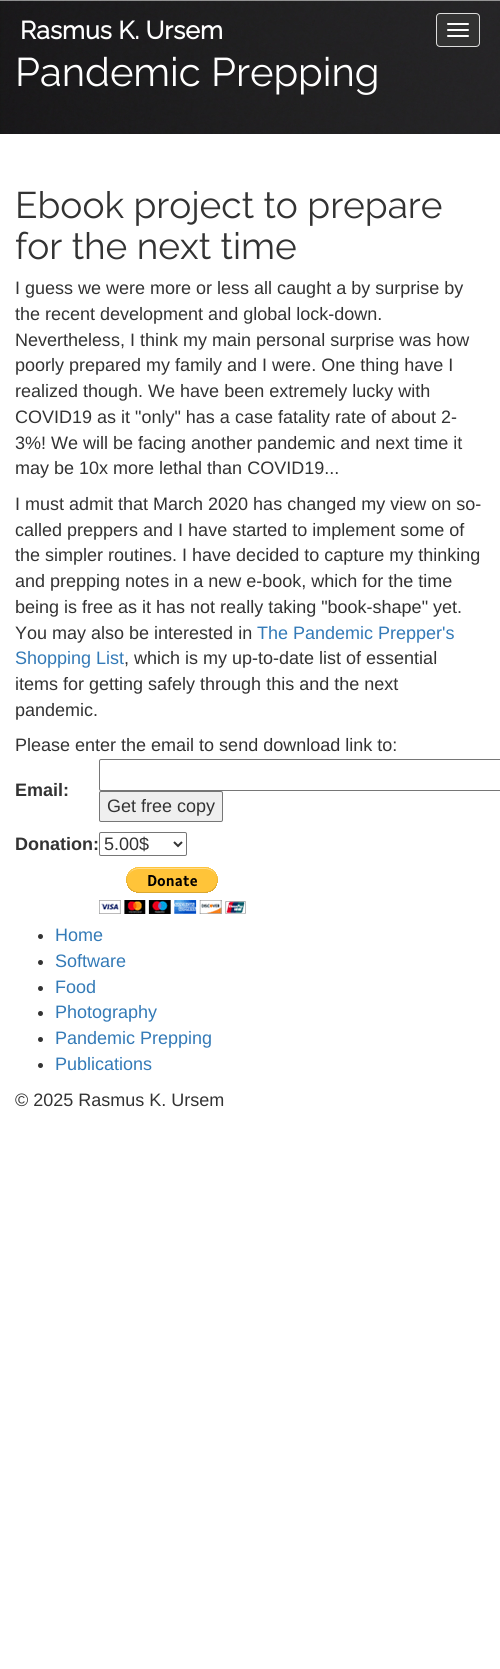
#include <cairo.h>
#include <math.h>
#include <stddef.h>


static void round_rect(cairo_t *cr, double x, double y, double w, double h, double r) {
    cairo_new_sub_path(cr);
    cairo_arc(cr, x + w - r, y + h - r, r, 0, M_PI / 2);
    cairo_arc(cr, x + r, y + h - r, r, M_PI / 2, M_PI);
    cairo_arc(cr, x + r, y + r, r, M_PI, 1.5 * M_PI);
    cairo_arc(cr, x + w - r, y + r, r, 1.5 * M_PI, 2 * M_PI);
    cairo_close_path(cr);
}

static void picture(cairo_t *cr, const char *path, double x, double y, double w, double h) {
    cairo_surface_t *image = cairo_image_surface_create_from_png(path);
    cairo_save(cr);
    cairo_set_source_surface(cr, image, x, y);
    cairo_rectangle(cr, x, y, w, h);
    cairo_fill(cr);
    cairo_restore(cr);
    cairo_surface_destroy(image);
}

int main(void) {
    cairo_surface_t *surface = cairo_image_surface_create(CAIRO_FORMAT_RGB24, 500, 1669);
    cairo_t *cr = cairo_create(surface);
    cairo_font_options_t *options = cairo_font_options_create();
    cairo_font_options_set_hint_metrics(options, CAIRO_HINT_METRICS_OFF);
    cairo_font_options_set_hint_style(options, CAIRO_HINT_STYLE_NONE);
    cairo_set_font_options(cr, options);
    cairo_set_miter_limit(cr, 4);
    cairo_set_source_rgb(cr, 1, 1, 1);
    cairo_paint(cr);
    picture(cr, "img1.png", 0, 0, 500, 134);
    cairo_select_font_face(cr, "Raleway", CAIRO_FONT_SLANT_NORMAL, CAIRO_FONT_WEIGHT_BOLD);
    cairo_set_font_size(cr, 25);
    cairo_set_source_rgb(cr, 1, 1, 1);
    cairo_move_to(cr, 20, 39);
    cairo_show_text(cr, "Rasmus K. Ursem");
    cairo_set_source_rgb(cr, 0.2, 0.2, 0.2);
    round_rect(cr, 436.5, 13.5, 43, 33, 3.5);
    cairo_fill_preserve(cr);
    cairo_set_source_rgb(cr, 0.867, 0.867, 0.867);
    cairo_set_line_width(cr, 1);
    cairo_stroke(cr);
    cairo_set_source_rgb(cr, 1, 1, 1);
    round_rect(cr, 447, 23, 22, 2, 1);
    cairo_fill(cr);
    round_rect(cr, 447, 29, 22, 2, 1);
    cairo_fill(cr);
    round_rect(cr, 447, 35, 22, 2, 1);
    cairo_fill(cr);
    cairo_select_font_face(cr, "Raleway Thin", CAIRO_FONT_SLANT_NORMAL, CAIRO_FONT_WEIGHT_NORMAL);
    cairo_set_font_size(cr, 40);
    cairo_move_to(cr, 15, 86);
    cairo_show_text(cr, "Pandemic Prepping");
    cairo_set_font_size(cr, 37);
    cairo_set_source_rgb(cr, 0.2, 0.2, 0.2);
    cairo_move_to(cr, 15, 218);
    cairo_show_text(cr, "Ebook project to prepare");
    cairo_move_to(cr, 15, 259);
    cairo_show_text(cr, "for the next time");
    cairo_select_font_face(cr, "Liberation Sans", CAIRO_FONT_SLANT_NORMAL, CAIRO_FONT_WEIGHT_NORMAL);
    cairo_set_font_size(cr, 18);
    cairo_move_to(cr, 15, 294);
    cairo_show_text(cr, "I guess we were more or less all caught a by surprise by");
    cairo_move_to(cr, 15, 320);
    cairo_show_text(cr, "the recent development and global lock-down.");
    cairo_move_to(cr, 15, 346);
    cairo_show_text(cr, "Nevertheless, I think my main personal surprise was how");
    cairo_move_to(cr, 15, 371);
    cairo_show_text(cr, "poorly prepared my family and I were. One thing have I");
    cairo_move_to(cr, 15, 397);
    cairo_show_text(cr, "realized though. We have been extremely lucky with");
    cairo_move_to(cr, 15, 423);
    cairo_show_text(cr, "COVID19 as it \"only\" has a case fatality rate of about 2-");
    cairo_move_to(cr, 15, 449);
    cairo_show_text(cr, "3%! We will be facing another pandemic and next time it");
    cairo_move_to(cr, 15, 474);
    cairo_show_text(cr, "may be 10x more lethal than COVID19...");
    cairo_move_to(cr, 15, 510);
    cairo_show_text(cr, "I must admit that March 2020 has changed my view on so-");
    cairo_move_to(cr, 15, 536);
    cairo_show_text(cr, "called preppers and I have started to implement some of");
    cairo_move_to(cr, 15, 561);
    cairo_show_text(cr, "the simpler routines. I have decided to capture my thinking");
    cairo_move_to(cr, 15, 587);
    cairo_show_text(cr, "and prepping notes in a new e-book, which for the time");
    cairo_move_to(cr, 15, 613);
    cairo_show_text(cr, "being is free as it has not really taking \"book-shape\" yet.");
    cairo_move_to(cr, 15, 639);
    cairo_show_text(cr, "You may also be interested in");
    cairo_set_source_rgb(cr, 0.2, 0.478, 0.718);
    cairo_move_to(cr, 257, 639);
    cairo_show_text(cr, "The Pandemic Prepper's");
    cairo_move_to(cr, 15, 664);
    cairo_show_text(cr, "Shopping List");
    cairo_set_source_rgb(cr, 0.2, 0.2, 0.2);
    cairo_move_to(cr, 124, 664);
    cairo_show_text(cr, ", which is my up-to-date list of essential");
    cairo_move_to(cr, 15, 690);
    cairo_show_text(cr, "items for getting safely through this and the next");
    cairo_move_to(cr, 15, 716);
    cairo_show_text(cr, "pandemic.");
    cairo_move_to(cr, 15, 751);
    cairo_show_text(cr, "Please enter the email to send download link to:");
    cairo_select_font_face(cr, "Liberation Sans", CAIRO_FONT_SLANT_NORMAL, CAIRO_FONT_WEIGHT_BOLD);
    cairo_move_to(cr, 15, 796);
    cairo_show_text(cr, "Email:");
    round_rect(cr, 99.5, 759.5, 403, 31, 1.5);
    cairo_set_source_rgb(cr, 0.463, 0.463, 0.463);
    cairo_stroke(cr);
    cairo_set_source_rgb(cr, 0.937, 0.937, 0.937);
    round_rect(cr, 99.5, 791.5, 123, 30, 1.5);
    cairo_fill_preserve(cr);
    cairo_set_source_rgb(cr, 0.463, 0.463, 0.463);
    cairo_stroke(cr);
    cairo_select_font_face(cr, "Liberation Sans", CAIRO_FONT_SLANT_NORMAL, CAIRO_FONT_WEIGHT_NORMAL);
    cairo_set_source_rgb(cr, 0.2, 0.2, 0.2);
    cairo_move_to(cr, 107, 812);
    cairo_show_text(cr, "Get free copy");
    cairo_select_font_face(cr, "Liberation Sans", CAIRO_FONT_SLANT_NORMAL, CAIRO_FONT_WEIGHT_BOLD);
    cairo_move_to(cr, 15, 850);
    cairo_show_text(cr, "Donation:");
    round_rect(cr, 99.5, 832.5, 87, 23, 1.5);
    cairo_set_source_rgb(cr, 0.463, 0.463, 0.463);
    cairo_stroke(cr);
    cairo_new_path(cr);
    cairo_move_to(cr, 174, 842);
    cairo_line_to(cr, 178, 846);
    cairo_line_to(cr, 182, 842);
    cairo_set_source_rgb(cr, 0.2, 0.2, 0.2);
    cairo_set_line_width(cr, 2);
    cairo_stroke(cr);
    cairo_select_font_face(cr, "Liberation Sans", CAIRO_FONT_SLANT_NORMAL, CAIRO_FONT_WEIGHT_NORMAL);
    cairo_move_to(cr, 104, 850);
    cairo_show_text(cr, "5.00$");
    picture(cr, "img2.png", 99, 867, 147, 47);
    cairo_arc(cr, 40.5, 936.5, 2.5, 0, 2 * M_PI);
    cairo_fill(cr);
    cairo_set_source_rgb(cr, 0.2, 0.478, 0.718);
    cairo_move_to(cr, 55, 941);
    cairo_show_text(cr, "Home");
    cairo_set_source_rgb(cr, 0.2, 0.2, 0.2);
    cairo_new_path(cr);
    cairo_arc(cr, 40.5, 962.5, 2.5, 0, 2 * M_PI);
    cairo_fill(cr);
    cairo_set_source_rgb(cr, 0.2, 0.478, 0.718);
    cairo_move_to(cr, 55, 967);
    cairo_show_text(cr, "Software");
    cairo_set_source_rgb(cr, 0.2, 0.2, 0.2);
    cairo_new_path(cr);
    cairo_arc(cr, 40.5, 988.5, 2.5, 0, 2 * M_PI);
    cairo_fill(cr);
    cairo_set_source_rgb(cr, 0.2, 0.478, 0.718);
    cairo_move_to(cr, 55, 993);
    cairo_show_text(cr, "Food");
    cairo_set_source_rgb(cr, 0.2, 0.2, 0.2);
    cairo_new_path(cr);
    cairo_arc(cr, 40.5, 1013.5, 2.5, 0, 2 * M_PI);
    cairo_fill(cr);
    cairo_set_source_rgb(cr, 0.2, 0.478, 0.718);
    cairo_move_to(cr, 55, 1018);
    cairo_show_text(cr, "Photography");
    cairo_set_source_rgb(cr, 0.2, 0.2, 0.2);
    cairo_new_path(cr);
    cairo_arc(cr, 40.5, 1039.5, 2.5, 0, 2 * M_PI);
    cairo_fill(cr);
    cairo_set_source_rgb(cr, 0.2, 0.478, 0.718);
    cairo_move_to(cr, 55, 1044);
    cairo_show_text(cr, "Pandemic Prepping");
    cairo_set_source_rgb(cr, 0.2, 0.2, 0.2);
    cairo_new_path(cr);
    cairo_arc(cr, 40.5, 1065.5, 2.5, 0, 2 * M_PI);
    cairo_fill(cr);
    cairo_set_source_rgb(cr, 0.2, 0.478, 0.718);
    cairo_move_to(cr, 55, 1070);
    cairo_show_text(cr, "Publications");
    cairo_set_source_rgb(cr, 0.2, 0.2, 0.2);
    cairo_move_to(cr, 15, 1106);
    cairo_show_text(cr, "© 2025 Rasmus K. Ursem");
    cairo_surface_write_to_png(surface, "page.png");
    cairo_font_options_destroy(options);
    cairo_destroy(cr);
    cairo_surface_destroy(surface);
    return 0;
}
